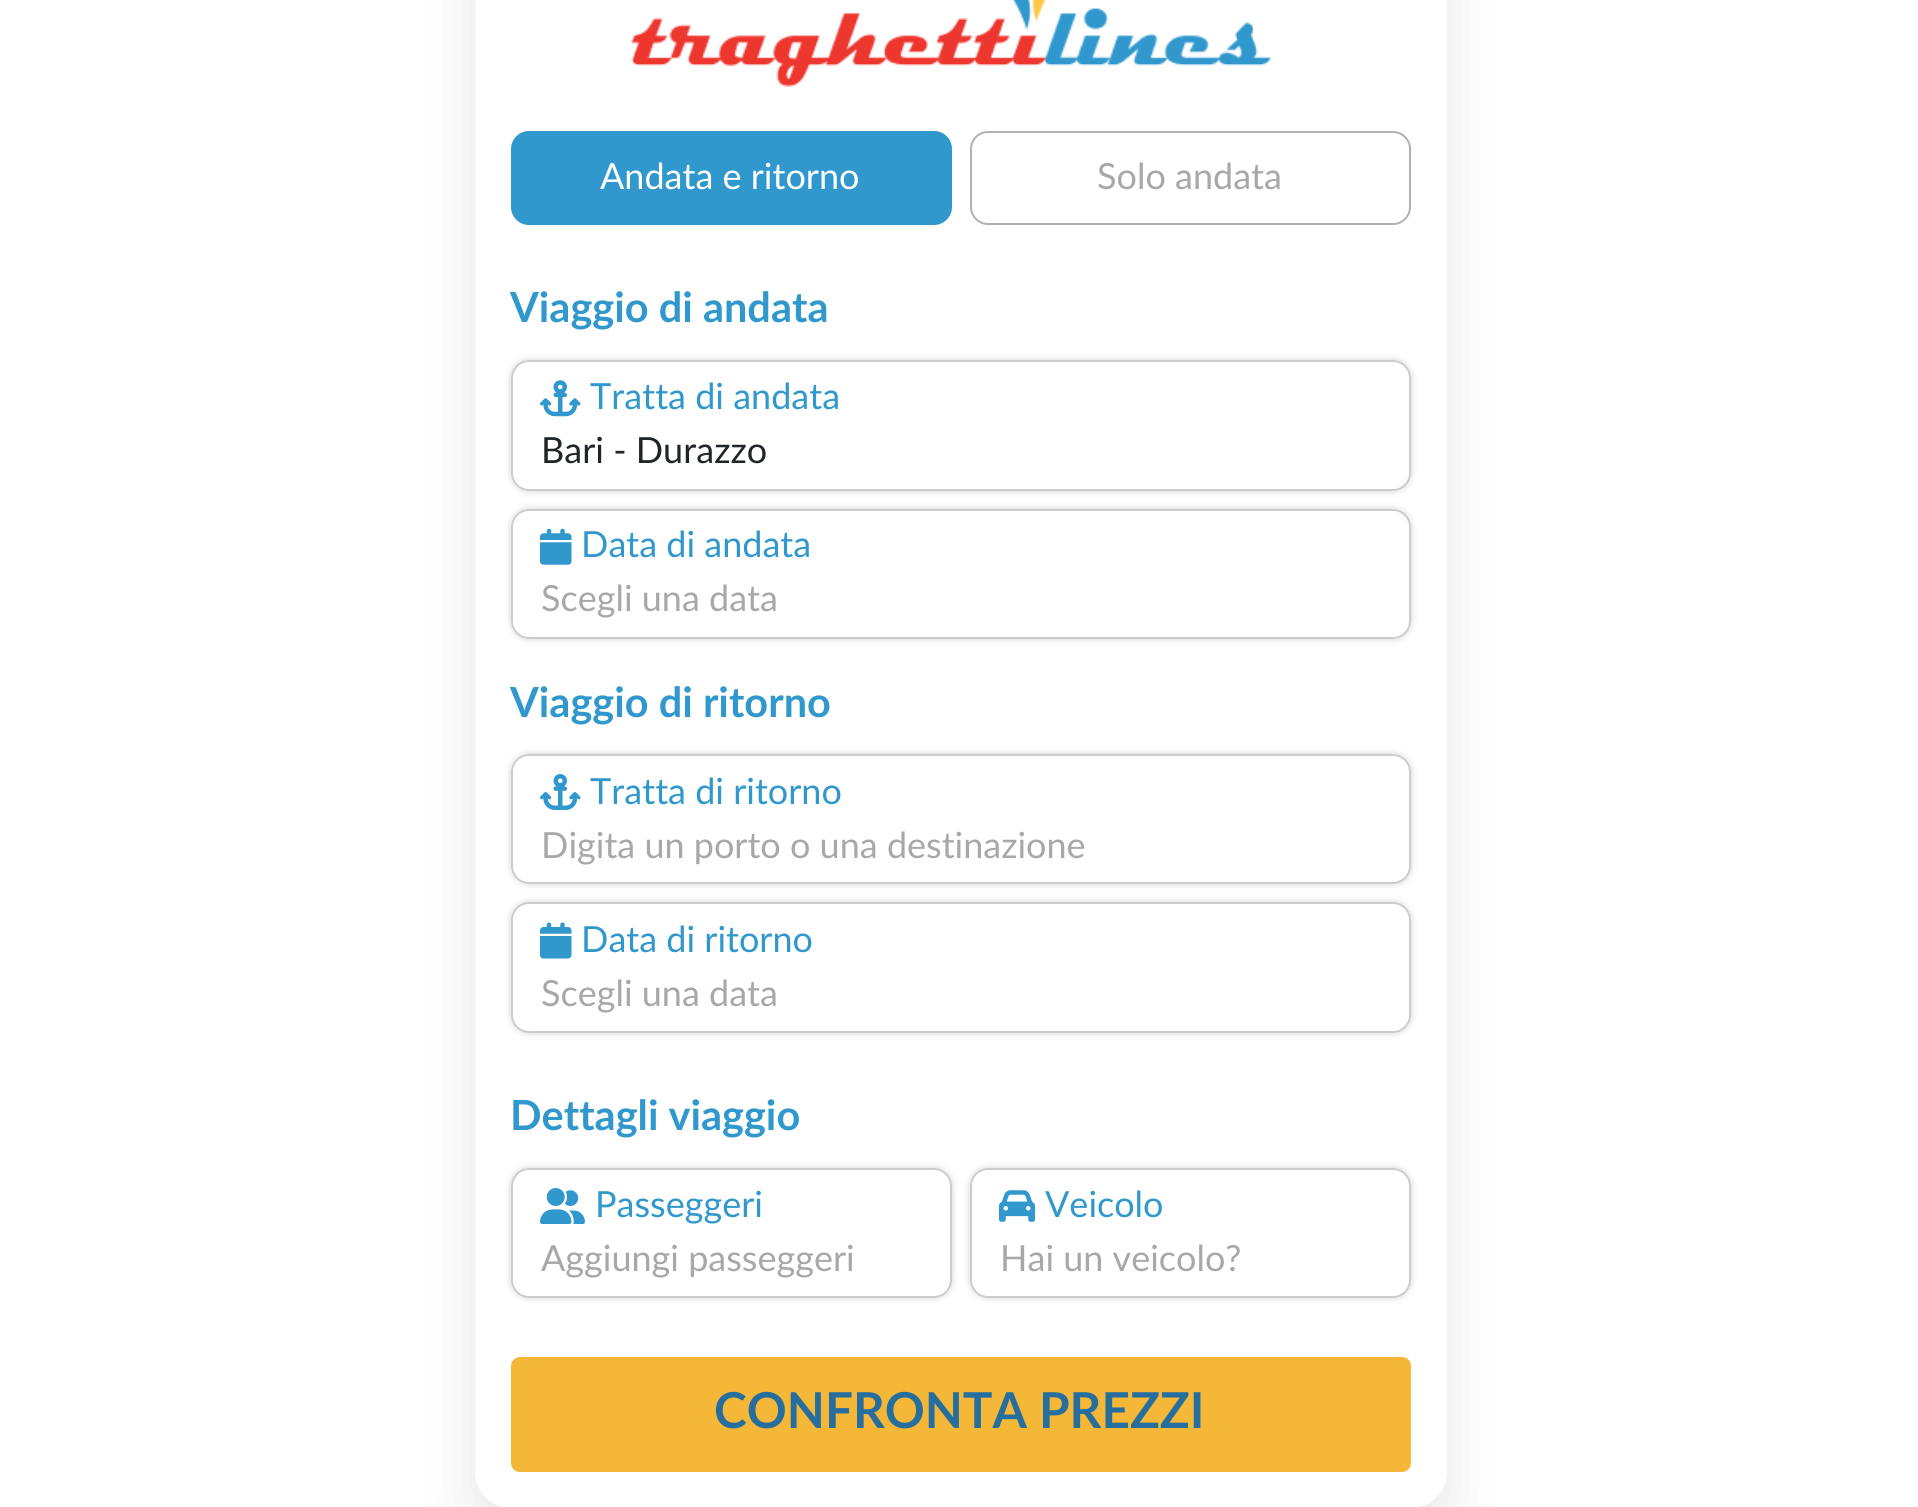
#include <cairo.h>
#include <math.h>
#include <stddef.h>


static void round_rect(cairo_t *cr, double x, double y, double w, double h, double r) {
    cairo_new_sub_path(cr);
    cairo_arc(cr, x + w - r, y + h - r, r, 0, M_PI / 2);
    cairo_arc(cr, x + r, y + h - r, r, M_PI / 2, M_PI);
    cairo_arc(cr, x + r, y + r, r, M_PI, 1.5 * M_PI);
    cairo_arc(cr, x + w - r, y + r, r, 1.5 * M_PI, 2 * M_PI);
    cairo_close_path(cr);
}

static void shadow(cairo_t *cr, double x, double y, double w, double h, double r, double blur, double alpha) {
    cairo_push_group_with_content(cr, CAIRO_CONTENT_ALPHA);
    cairo_set_operator(cr, CAIRO_OPERATOR_SOURCE);
    for (int i = 15; i >= -15 && fmin(w, h) + blur * i / 3 > 0; i -= 2) {
        double e = blur * i / 6;
        cairo_set_source_rgba(cr, 0, 0, 0, alpha * erfc((i - 1) / 8.5) / 2);
        round_rect(cr, x - e, y - e, w + 2 * e, h + 2 * e, fmax(0, fmin(r + e + blur * .6, fmin(w, h) / 2 + e)));
        cairo_fill(cr);
    }
    cairo_pattern_t *soft = cairo_pop_group(cr);
    cairo_mask(cr, soft);
    cairo_pattern_destroy(soft);
}

static void picture(cairo_t *cr, const char *path, double x, double y, double w, double h) {
    cairo_surface_t *image = cairo_image_surface_create_from_png(path);
    cairo_save(cr);
    cairo_set_source_surface(cr, image, x, y);
    cairo_rectangle(cr, x, y, w, h);
    cairo_fill(cr);
    cairo_restore(cr);
    cairo_surface_destroy(image);
}

int main(void) {
    cairo_surface_t *surface = cairo_image_surface_create(CAIRO_FORMAT_RGB24, 1918, 1507);
    cairo_t *cr = cairo_create(surface);
    cairo_font_options_t *options = cairo_font_options_create();
    cairo_font_options_set_hint_metrics(options, CAIRO_HINT_METRICS_OFF);
    cairo_font_options_set_hint_style(options, CAIRO_HINT_STYLE_NONE);
    cairo_set_font_options(cr, options);
    cairo_set_miter_limit(cr, 4);
    cairo_set_source_rgb(cr, 1, 1, 1);
    cairo_paint(cr);
    cairo_set_source_rgb(cr, 0, 0, 0);
    shadow(cr, 475, -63, 972, 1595, 36, 28, 0.1);
    cairo_set_source_rgb(cr, 1, 1, 1);
    round_rect(cr, 475, -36, 972, 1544, 36);
    cairo_fill(cr);
    picture(cr, "img1.png", 631, 0, 640, 87);
    cairo_set_source_rgb(cr, 0.188, 0.596, 0.804);
    round_rect(cr, 512, 132, 439, 92, 17);
    cairo_fill_preserve(cr);
    cairo_stroke(cr);
    cairo_select_font_face(cr, "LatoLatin", CAIRO_FONT_SLANT_NORMAL, CAIRO_FONT_WEIGHT_NORMAL);
    cairo_set_font_size(cr, 36);
    cairo_set_source_rgb(cr, 1, 1, 1);
    cairo_move_to(cr, 600, 189);
    cairo_show_text(cr, "Andata e ritorno");
    round_rect(cr, 971, 132, 439, 92, 17);
    cairo_set_source_rgb(cr, 0.694, 0.694, 0.694);
    cairo_stroke(cr);
    cairo_set_source_rgb(cr, 0.659, 0.659, 0.659);
    cairo_move_to(cr, 1097, 189);
    cairo_show_text(cr, "Solo andata");
    cairo_select_font_face(cr, "LatoLatin", CAIRO_FONT_SLANT_NORMAL, CAIRO_FONT_WEIGHT_BOLD);
    cairo_set_font_size(cr, 41.5);
    cairo_set_source_rgb(cr, 0.188, 0.596, 0.804);
    cairo_move_to(cr, 510, 322);
    cairo_show_text(cr, "Viaggio di andata");
    cairo_save(cr);
    cairo_set_fill_rule(cr, CAIRO_FILL_RULE_EVEN_ODD);
    cairo_new_path(cr);
    cairo_move_to(cr, 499, 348);
    cairo_line_to(cr, 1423, 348);
    cairo_line_to(cr, 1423, 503);
    cairo_line_to(cr, 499, 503);
    cairo_close_path(cr);
    cairo_move_to(cr, 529, 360);
    cairo_line_to(cr, 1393, 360);
    cairo_curve_to(cr, 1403, 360, 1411, 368, 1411, 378);
    cairo_line_to(cr, 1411, 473);
    cairo_curve_to(cr, 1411, 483, 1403, 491, 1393, 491);
    cairo_line_to(cr, 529, 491);
    cairo_curve_to(cr, 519, 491, 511, 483, 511, 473);
    cairo_line_to(cr, 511, 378);
    cairo_curve_to(cr, 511, 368, 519, 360, 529, 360);
    cairo_close_path(cr);
    cairo_clip(cr);
    cairo_set_source_rgb(cr, 0, 0, 0);
    shadow(cr, 511, 360, 900, 131, 18, 3.5, 0.19);
    cairo_restore(cr);
    round_rect(cr, 512, 361, 898, 129, 17);
    cairo_set_source_rgb(cr, 0.8, 0.8, 0.8);
    cairo_stroke(cr);
    picture(cr, "img2.png", 540, 380, 41, 37);
    cairo_select_font_face(cr, "LatoLatin", CAIRO_FONT_SLANT_NORMAL, CAIRO_FONT_WEIGHT_NORMAL);
    cairo_set_font_size(cr, 36);
    cairo_set_source_rgb(cr, 0.188, 0.596, 0.804);
    cairo_move_to(cr, 590, 409);
    cairo_show_text(cr, "Tratta di andata");
    cairo_set_source_rgb(cr, 0.129, 0.145, 0.161);
    cairo_move_to(cr, 541, 463);
    cairo_show_text(cr, "Bari - Durazzo");
    cairo_save(cr);
    cairo_set_fill_rule(cr, CAIRO_FILL_RULE_EVEN_ODD);
    cairo_new_path(cr);
    cairo_move_to(cr, 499, 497);
    cairo_line_to(cr, 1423, 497);
    cairo_line_to(cr, 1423, 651);
    cairo_line_to(cr, 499, 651);
    cairo_close_path(cr);
    cairo_move_to(cr, 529, 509);
    cairo_line_to(cr, 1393, 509);
    cairo_curve_to(cr, 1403, 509, 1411, 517, 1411, 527);
    cairo_line_to(cr, 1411, 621);
    cairo_curve_to(cr, 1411, 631, 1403, 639, 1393, 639);
    cairo_line_to(cr, 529, 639);
    cairo_curve_to(cr, 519, 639, 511, 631, 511, 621);
    cairo_line_to(cr, 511, 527);
    cairo_curve_to(cr, 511, 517, 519, 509, 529, 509);
    cairo_close_path(cr);
    cairo_clip(cr);
    cairo_set_source_rgb(cr, 0, 0, 0);
    shadow(cr, 511, 509, 900, 130, 18, 3.5, 0.19);
    cairo_restore(cr);
    round_rect(cr, 512, 510, 898, 128, 17);
    cairo_set_source_rgb(cr, 0.8, 0.8, 0.8);
    cairo_stroke(cr);
    picture(cr, "img3.png", 540, 528, 32, 37);
    cairo_set_source_rgb(cr, 0.188, 0.596, 0.804);
    cairo_move_to(cr, 581, 557);
    cairo_show_text(cr, "Data di andata");
    cairo_set_source_rgb(cr, 0.659, 0.659, 0.659);
    cairo_move_to(cr, 541, 611);
    cairo_show_text(cr, "Scegli una data");
    cairo_select_font_face(cr, "LatoLatin", CAIRO_FONT_SLANT_NORMAL, CAIRO_FONT_WEIGHT_BOLD);
    cairo_set_font_size(cr, 41.5);
    cairo_set_source_rgb(cr, 0.188, 0.596, 0.804);
    cairo_move_to(cr, 510, 717);
    cairo_show_text(cr, "Viaggio di ritorno");
    cairo_save(cr);
    cairo_set_fill_rule(cr, CAIRO_FILL_RULE_EVEN_ODD);
    cairo_new_path(cr);
    cairo_move_to(cr, 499, 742);
    cairo_line_to(cr, 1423, 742);
    cairo_line_to(cr, 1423, 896);
    cairo_line_to(cr, 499, 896);
    cairo_close_path(cr);
    cairo_move_to(cr, 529, 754);
    cairo_line_to(cr, 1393, 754);
    cairo_curve_to(cr, 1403, 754, 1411, 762, 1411, 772);
    cairo_line_to(cr, 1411, 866);
    cairo_curve_to(cr, 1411, 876, 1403, 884, 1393, 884);
    cairo_line_to(cr, 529, 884);
    cairo_curve_to(cr, 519, 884, 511, 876, 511, 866);
    cairo_line_to(cr, 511, 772);
    cairo_curve_to(cr, 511, 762, 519, 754, 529, 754);
    cairo_close_path(cr);
    cairo_clip(cr);
    cairo_set_source_rgb(cr, 0, 0, 0);
    shadow(cr, 511, 754, 900, 130, 18, 3.5, 0.19);
    cairo_restore(cr);
    round_rect(cr, 512, 755, 898, 128, 17);
    cairo_set_source_rgb(cr, 0.8, 0.8, 0.8);
    cairo_stroke(cr);
    picture(cr, "img4.png", 540, 774, 41, 36);
    cairo_select_font_face(cr, "LatoLatin", CAIRO_FONT_SLANT_NORMAL, CAIRO_FONT_WEIGHT_NORMAL);
    cairo_set_font_size(cr, 36);
    cairo_set_source_rgb(cr, 0.188, 0.596, 0.804);
    cairo_move_to(cr, 590, 804);
    cairo_show_text(cr, "Tratta di ritorno");
    cairo_set_source_rgb(cr, 0.659, 0.659, 0.659);
    cairo_move_to(cr, 541, 858);
    cairo_show_text(cr, "Digita un porto o una destinazione");
    cairo_save(cr);
    cairo_set_fill_rule(cr, CAIRO_FILL_RULE_EVEN_ODD);
    cairo_new_path(cr);
    cairo_move_to(cr, 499, 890);
    cairo_line_to(cr, 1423, 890);
    cairo_line_to(cr, 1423, 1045);
    cairo_line_to(cr, 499, 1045);
    cairo_close_path(cr);
    cairo_move_to(cr, 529, 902);
    cairo_line_to(cr, 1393, 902);
    cairo_curve_to(cr, 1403, 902, 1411, 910, 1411, 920);
    cairo_line_to(cr, 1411, 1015);
    cairo_curve_to(cr, 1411, 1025, 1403, 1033, 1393, 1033);
    cairo_line_to(cr, 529, 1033);
    cairo_curve_to(cr, 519, 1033, 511, 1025, 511, 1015);
    cairo_line_to(cr, 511, 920);
    cairo_curve_to(cr, 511, 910, 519, 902, 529, 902);
    cairo_close_path(cr);
    cairo_clip(cr);
    cairo_set_source_rgb(cr, 0, 0, 0);
    shadow(cr, 511, 902, 900, 131, 18, 3.5, 0.19);
    cairo_restore(cr);
    round_rect(cr, 512, 903, 898, 129, 17);
    cairo_set_source_rgb(cr, 0.8, 0.8, 0.8);
    cairo_stroke(cr);
    picture(cr, "img5.png", 540, 922, 32, 37);
    cairo_set_source_rgb(cr, 0.188, 0.596, 0.804);
    cairo_move_to(cr, 581, 952);
    cairo_show_text(cr, "Data di ritorno");
    cairo_set_source_rgb(cr, 0.659, 0.659, 0.659);
    cairo_move_to(cr, 541, 1006);
    cairo_show_text(cr, "Scegli una data");
    cairo_select_font_face(cr, "LatoLatin", CAIRO_FONT_SLANT_NORMAL, CAIRO_FONT_WEIGHT_BOLD);
    cairo_set_font_size(cr, 41.5);
    cairo_set_source_rgb(cr, 0.188, 0.596, 0.804);
    cairo_move_to(cr, 510, 1130);
    cairo_show_text(cr, "Dettagli viaggio");
    cairo_save(cr);
    cairo_set_fill_rule(cr, CAIRO_FILL_RULE_EVEN_ODD);
    cairo_new_path(cr);
    cairo_move_to(cr, 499, 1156);
    cairo_line_to(cr, 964, 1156);
    cairo_line_to(cr, 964, 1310);
    cairo_line_to(cr, 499, 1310);
    cairo_close_path(cr);
    cairo_move_to(cr, 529, 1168);
    cairo_line_to(cr, 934, 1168);
    cairo_curve_to(cr, 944, 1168, 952, 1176, 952, 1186);
    cairo_line_to(cr, 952, 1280);
    cairo_curve_to(cr, 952, 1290, 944, 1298, 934, 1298);
    cairo_line_to(cr, 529, 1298);
    cairo_curve_to(cr, 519, 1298, 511, 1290, 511, 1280);
    cairo_line_to(cr, 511, 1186);
    cairo_curve_to(cr, 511, 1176, 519, 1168, 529, 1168);
    cairo_close_path(cr);
    cairo_clip(cr);
    cairo_set_source_rgb(cr, 0, 0, 0);
    shadow(cr, 511, 1168, 441, 130, 18, 3.5, 0.19);
    cairo_restore(cr);
    round_rect(cr, 512, 1169, 439, 128, 17);
    cairo_set_source_rgb(cr, 0.8, 0.8, 0.8);
    cairo_stroke(cr);
    picture(cr, "img6.png", 540, 1188, 45, 36);
    cairo_select_font_face(cr, "LatoLatin", CAIRO_FONT_SLANT_NORMAL, CAIRO_FONT_WEIGHT_NORMAL);
    cairo_set_font_size(cr, 36);
    cairo_set_source_rgb(cr, 0.188, 0.596, 0.804);
    cairo_move_to(cr, 595, 1217);
    cairo_show_text(cr, "Passeggeri");
    cairo_set_source_rgb(cr, 0.659, 0.659, 0.659);
    cairo_move_to(cr, 541, 1271);
    cairo_show_text(cr, "Aggiungi passeggeri");
    cairo_save(cr);
    cairo_set_fill_rule(cr, CAIRO_FILL_RULE_EVEN_ODD);
    cairo_new_path(cr);
    cairo_move_to(cr, 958, 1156);
    cairo_line_to(cr, 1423, 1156);
    cairo_line_to(cr, 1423, 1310);
    cairo_line_to(cr, 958, 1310);
    cairo_close_path(cr);
    cairo_move_to(cr, 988, 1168);
    cairo_line_to(cr, 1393, 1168);
    cairo_curve_to(cr, 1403, 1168, 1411, 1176, 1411, 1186);
    cairo_line_to(cr, 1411, 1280);
    cairo_curve_to(cr, 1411, 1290, 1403, 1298, 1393, 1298);
    cairo_line_to(cr, 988, 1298);
    cairo_curve_to(cr, 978, 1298, 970, 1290, 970, 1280);
    cairo_line_to(cr, 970, 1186);
    cairo_curve_to(cr, 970, 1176, 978, 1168, 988, 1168);
    cairo_close_path(cr);
    cairo_clip(cr);
    cairo_set_source_rgb(cr, 0, 0, 0);
    shadow(cr, 970, 1168, 441, 130, 18, 3.5, 0.19);
    cairo_restore(cr);
    round_rect(cr, 971, 1169, 439, 128, 17);
    cairo_set_source_rgb(cr, 0.8, 0.8, 0.8);
    cairo_stroke(cr);
    picture(cr, "img7.png", 999, 1190, 36, 32);
    cairo_set_source_rgb(cr, 0.188, 0.596, 0.804);
    cairo_move_to(cr, 1045, 1217);
    cairo_show_text(cr, "Veicolo");
    cairo_set_source_rgb(cr, 0.659, 0.659, 0.659);
    cairo_move_to(cr, 1000, 1271);
    cairo_show_text(cr, "Hai un veicolo?");
    cairo_set_source_rgb(cr, 0.957, 0.718, 0.22);
    round_rect(cr, 511, 1357, 900, 115, 9);
    cairo_fill(cr);
    cairo_select_font_face(cr, "LatoLatin", CAIRO_FONT_SLANT_NORMAL, CAIRO_FONT_WEIGHT_BOLD);
    cairo_set_font_size(cr, 49.5);
    cairo_set_source_rgb(cr, 0.149, 0.431, 0.62);
    cairo_move_to(cr, 714, 1428);
    cairo_show_text(cr, "CONFRONTA PREZZI");
    cairo_surface_write_to_png(surface, "page.png");
    cairo_font_options_destroy(options);
    cairo_destroy(cr);
    cairo_surface_destroy(surface);
    return 0;
}
